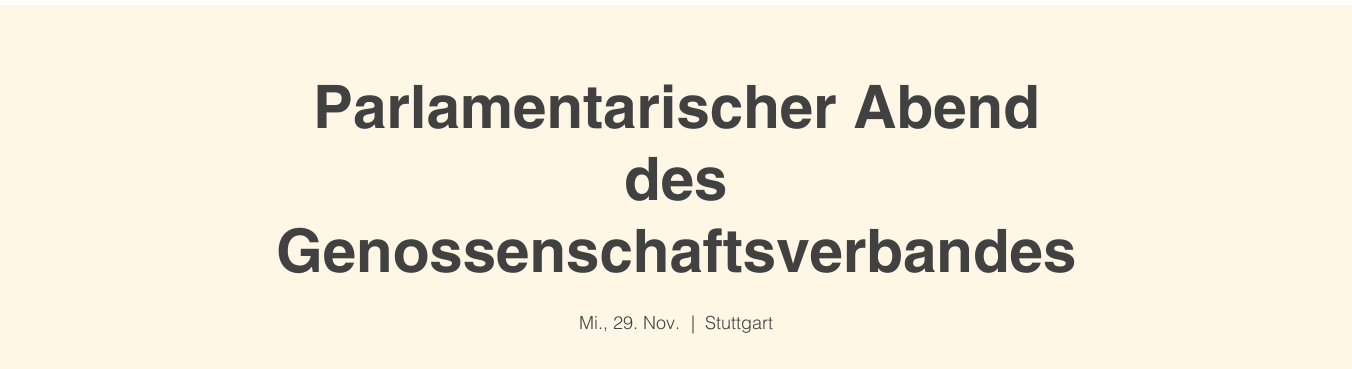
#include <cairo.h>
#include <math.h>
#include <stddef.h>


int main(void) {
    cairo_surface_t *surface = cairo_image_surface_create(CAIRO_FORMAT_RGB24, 1352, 369);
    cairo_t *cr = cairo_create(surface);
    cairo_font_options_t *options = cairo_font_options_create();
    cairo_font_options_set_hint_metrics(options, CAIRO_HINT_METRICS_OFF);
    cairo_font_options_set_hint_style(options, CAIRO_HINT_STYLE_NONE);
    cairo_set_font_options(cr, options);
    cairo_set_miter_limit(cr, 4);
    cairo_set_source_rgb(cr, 1, 1, 1);
    cairo_paint(cr);
    cairo_set_source_rgb(cr, 1, 0.965, 0.902);
    cairo_rectangle(cr, 0, 5, 1352, 364);
    cairo_fill(cr);
    cairo_select_font_face(cr, "helvetica", CAIRO_FONT_SLANT_NORMAL, CAIRO_FONT_WEIGHT_BOLD);
    cairo_set_font_size(cr, 60);
    cairo_set_source_rgb(cr, 0.255, 0.255, 0.255);
    cairo_move_to(cr, 313, 128);
    cairo_show_text(cr, "Parlamentarischer Abend");
    cairo_move_to(cr, 624, 200);
    cairo_show_text(cr, "des");
    cairo_move_to(cr, 276, 272);
    cairo_show_text(cr, "Genossenschaftsverbandes");
    cairo_select_font_face(cr, "helvetica Light", CAIRO_FONT_SLANT_NORMAL, CAIRO_FONT_WEIGHT_NORMAL);
    cairo_set_font_size(cr, 18);
    cairo_move_to(cr, 579, 329);
    cairo_show_text(cr, "Mi., 29. Nov.");
    cairo_move_to(cr, 691, 329);
    cairo_show_text(cr, "|");
    cairo_move_to(cr, 705, 329);
    cairo_show_text(cr, "Stuttgart");
    cairo_surface_write_to_png(surface, "page.png");
    cairo_font_options_destroy(options);
    cairo_destroy(cr);
    cairo_surface_destroy(surface);
    return 0;
}
